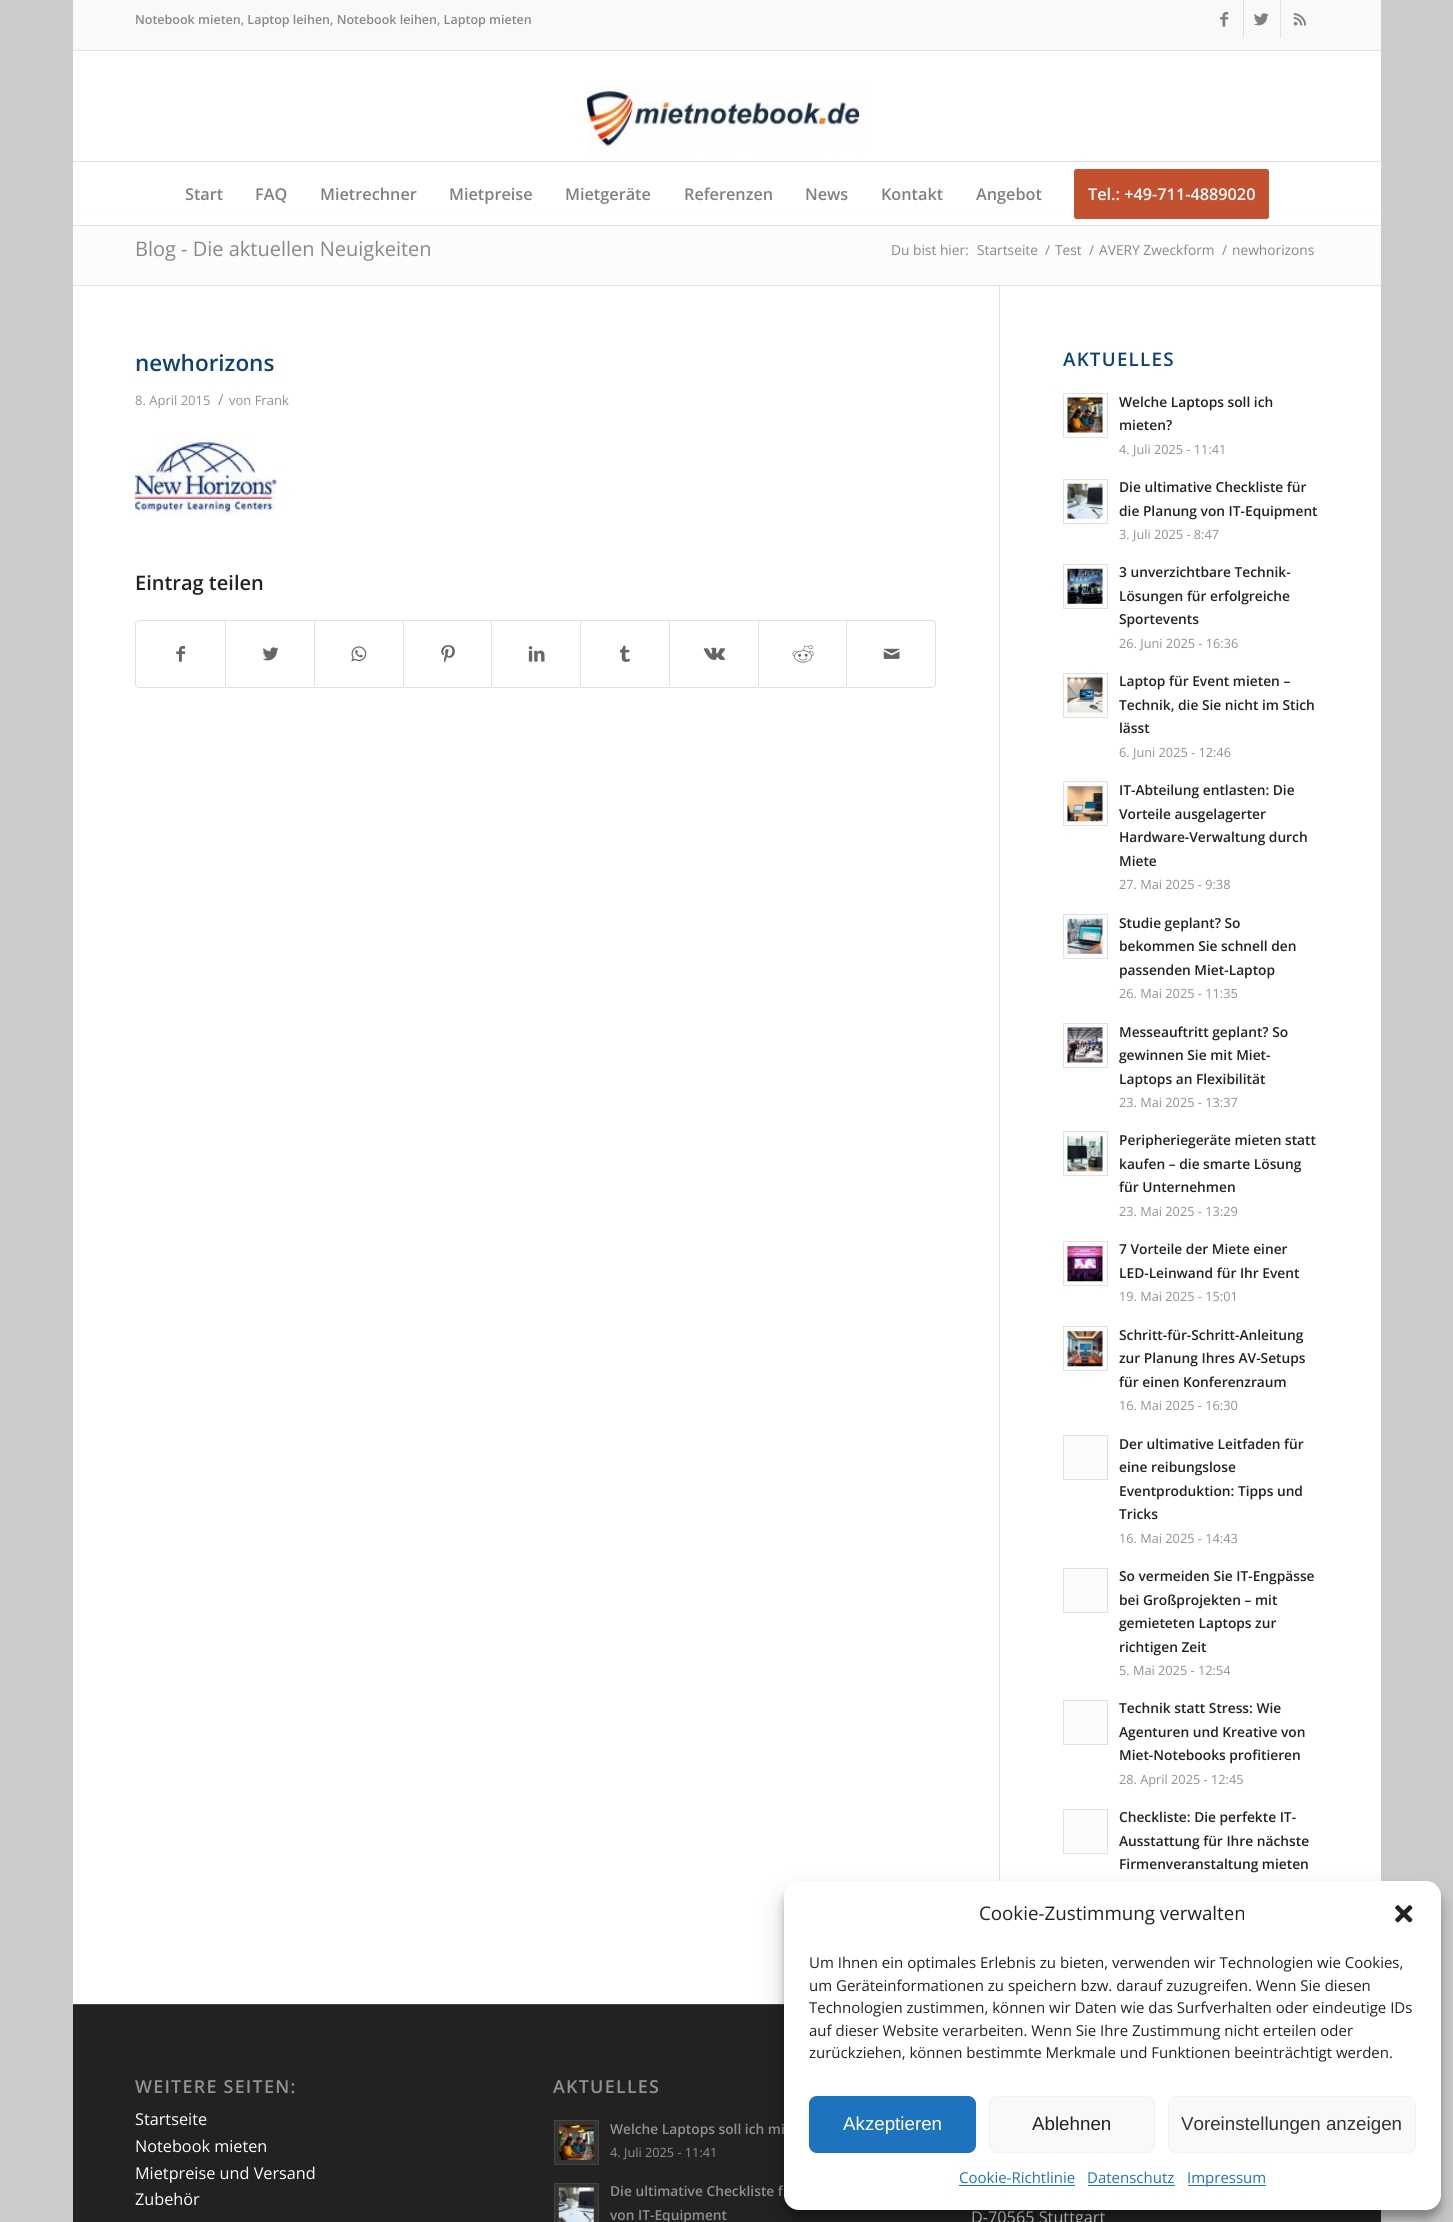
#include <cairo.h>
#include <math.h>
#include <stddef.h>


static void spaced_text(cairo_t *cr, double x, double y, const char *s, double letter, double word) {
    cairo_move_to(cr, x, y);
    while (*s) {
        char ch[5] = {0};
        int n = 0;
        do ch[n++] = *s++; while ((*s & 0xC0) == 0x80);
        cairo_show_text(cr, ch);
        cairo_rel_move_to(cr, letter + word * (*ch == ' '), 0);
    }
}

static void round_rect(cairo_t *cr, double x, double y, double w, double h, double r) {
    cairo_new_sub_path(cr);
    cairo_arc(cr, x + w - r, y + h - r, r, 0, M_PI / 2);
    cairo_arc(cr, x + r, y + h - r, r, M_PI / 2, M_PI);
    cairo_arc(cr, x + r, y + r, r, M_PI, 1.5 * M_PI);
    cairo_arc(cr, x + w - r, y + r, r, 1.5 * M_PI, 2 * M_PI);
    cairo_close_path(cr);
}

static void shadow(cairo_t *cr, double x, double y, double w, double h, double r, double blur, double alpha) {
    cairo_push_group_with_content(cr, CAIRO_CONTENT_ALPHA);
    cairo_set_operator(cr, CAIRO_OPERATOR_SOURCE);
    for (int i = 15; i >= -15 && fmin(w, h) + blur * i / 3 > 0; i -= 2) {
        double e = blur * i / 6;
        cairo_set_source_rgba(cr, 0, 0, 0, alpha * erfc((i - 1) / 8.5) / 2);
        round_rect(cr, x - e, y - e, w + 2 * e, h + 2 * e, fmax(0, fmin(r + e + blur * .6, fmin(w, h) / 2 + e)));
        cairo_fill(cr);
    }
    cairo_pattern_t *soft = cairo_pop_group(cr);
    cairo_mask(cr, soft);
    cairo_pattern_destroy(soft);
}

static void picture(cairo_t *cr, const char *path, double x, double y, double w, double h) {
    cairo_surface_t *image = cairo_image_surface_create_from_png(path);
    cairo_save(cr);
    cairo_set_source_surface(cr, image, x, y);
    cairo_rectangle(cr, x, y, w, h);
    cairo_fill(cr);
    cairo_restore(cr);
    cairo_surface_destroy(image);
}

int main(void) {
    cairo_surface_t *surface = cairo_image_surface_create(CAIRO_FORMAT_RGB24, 1453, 2222);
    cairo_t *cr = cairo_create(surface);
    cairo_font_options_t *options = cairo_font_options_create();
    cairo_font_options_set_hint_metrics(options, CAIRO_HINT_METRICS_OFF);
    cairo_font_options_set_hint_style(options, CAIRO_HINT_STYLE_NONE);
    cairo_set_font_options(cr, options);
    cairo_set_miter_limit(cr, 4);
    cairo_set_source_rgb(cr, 0.8, 0.8, 0.8);
    cairo_paint(cr);
    cairo_set_source_rgb(cr, 0.973, 0.973, 0.973);
    cairo_rectangle(cr, 73, 0, 1308, 50);
    cairo_fill(cr);
    cairo_set_source_rgb(cr, 0.882, 0.882, 0.882);
    cairo_rectangle(cr, 73, 50, 1308, 1);
    cairo_fill(cr);
    cairo_select_font_face(cr, "Open Sans SemiBold", CAIRO_FONT_SLANT_NORMAL, CAIRO_FONT_WEIGHT_NORMAL);
    cairo_set_font_size(cr, 12.5);
    cairo_set_source_rgb(cr, 0.533, 0.533, 0.533);
    cairo_move_to(cr, 135, 24);
    cairo_show_text(cr, "Notebook mieten, Laptop leihen, Notebook leihen, Laptop mieten");
    cairo_set_source_rgb(cr, 0.882, 0.882, 0.882);
    cairo_rectangle(cr, 1243, 0, 1, 38);
    cairo_fill(cr);
    picture(cr, "img1.png", 1220, 12, 9, 15);
    cairo_rectangle(cr, 1280, 0, 1, 38);
    cairo_fill(cr);
    picture(cr, "img2.png", 1254, 13, 15, 13);
    picture(cr, "img3.png", 1293, 13, 14, 13);
    cairo_rectangle(cr, 73, 225, 1308, 1);
    cairo_fill(cr);
    cairo_set_source_rgb(cr, 1, 1, 1);
    cairo_rectangle(cr, 73, 51, 1308, 162);
    cairo_fill(cr);
    picture(cr, "img4.png", 586, 85, 279, 68);
    cairo_set_source_rgb(cr, 0.882, 0.882, 0.882);
    cairo_rectangle(cr, 73, 161, 1308, 1);
    cairo_fill(cr);
    cairo_set_font_size(cr, 16.25);
    cairo_set_source_rgb(cr, 0.502, 0.502, 0.502);
    cairo_move_to(cr, 185, 200);
    cairo_show_text(cr, "Start");
    cairo_move_to(cr, 255, 200);
    cairo_show_text(cr, "FAQ");
    cairo_move_to(cr, 320, 200);
    cairo_show_text(cr, "Mietrechner");
    cairo_move_to(cr, 449, 200);
    cairo_show_text(cr, "Mietpreise");
    cairo_move_to(cr, 565, 200);
    cairo_show_text(cr, "Mietgeräte");
    cairo_move_to(cr, 684, 200);
    cairo_show_text(cr, "Referenzen");
    cairo_move_to(cr, 805, 200);
    cairo_show_text(cr, "News");
    cairo_move_to(cr, 881, 200);
    cairo_show_text(cr, "Kontakt");
    cairo_move_to(cr, 976, 200);
    cairo_show_text(cr, "Angebot");
    cairo_set_source_rgb(cr, 1, 1, 1);
    cairo_rectangle(cr, 73, 214, 1308, 11);
    cairo_fill(cr);
    cairo_set_source_rgb(cr, 0.996, 0.996, 0.996);
    cairo_rectangle(cr, 73, 213, 1308, 1);
    cairo_fill(cr);
    cairo_set_source_rgb(cr, 0.765, 0.318, 0.184);
    round_rect(cr, 1075.5, 170.5, 192, 47, 1);
    cairo_fill_preserve(cr);
    cairo_set_line_width(cr, 3);
    cairo_stroke(cr);
    cairo_set_source_rgb(cr, 1, 1, 1);
    cairo_move_to(cr, 1088, 200);
    cairo_show_text(cr, "Tel.: +49-711-4889020");
    cairo_rectangle(cr, 73, 286, 1308, 1718);
    cairo_fill(cr);
    cairo_set_source_rgb(cr, 0.988, 0.988, 0.988);
    cairo_rectangle(cr, 73, 226, 1308, 59);
    cairo_fill(cr);
    cairo_select_font_face(cr, "Open Sans", CAIRO_FONT_SLANT_NORMAL, CAIRO_FONT_WEIGHT_NORMAL);
    cairo_set_font_size(cr, 20);
    cairo_set_source_rgb(cr, 0.533, 0.533, 0.533);
    cairo_move_to(cr, 135, 256);
    cairo_show_text(cr, "Blog - Die aktuellen Neuigkeiten");
    cairo_set_font_size(cr, 13.75);
    cairo_move_to(cr, 891, 255);
    cairo_show_text(cr, "Du bist hier:");
    cairo_move_to(cr, 977, 255);
    cairo_show_text(cr, "Startseite");
    cairo_move_to(cr, 1045, 255);
    cairo_show_text(cr, "/");
    cairo_move_to(cr, 1055, 255);
    cairo_show_text(cr, "Test");
    cairo_move_to(cr, 1089, 255);
    cairo_show_text(cr, "/");
    cairo_move_to(cr, 1099, 255);
    cairo_show_text(cr, "AVERY Zweckform");
    cairo_move_to(cr, 1222, 255);
    cairo_show_text(cr, "/");
    cairo_move_to(cr, 1232, 255);
    cairo_show_text(cr, "newhorizons");
    cairo_set_source_rgb(cr, 0.882, 0.882, 0.882);
    cairo_rectangle(cr, 73, 285, 1308, 1);
    cairo_fill(cr);
    cairo_select_font_face(cr, "Open Sans SemiBold", CAIRO_FONT_SLANT_NORMAL, CAIRO_FONT_WEIGHT_NORMAL);
    cairo_set_font_size(cr, 22.5);
    cairo_set_source_rgb(cr, 0.059, 0.263, 0.431);
    cairo_move_to(cr, 135, 371);
    cairo_show_text(cr, "newhorizons");
    cairo_select_font_face(cr, "Open Sans", CAIRO_FONT_SLANT_NORMAL, CAIRO_FONT_WEIGHT_NORMAL);
    cairo_set_font_size(cr, 13);
    cairo_set_source_rgb(cr, 0.569, 0.569, 0.569);
    cairo_move_to(cr, 135, 405);
    cairo_show_text(cr, "8. April 2015");
    cairo_set_font_size(cr, 15);
    cairo_move_to(cr, 218, 405);
    cairo_show_text(cr, "/");
    cairo_set_font_size(cr, 13);
    cairo_move_to(cr, 229, 405);
    cairo_show_text(cr, "von Frank");
    picture(cr, "img5.png", 135, 438, 142, 76);
    cairo_select_font_face(cr, "Open Sans SemiBold", CAIRO_FONT_SLANT_NORMAL, CAIRO_FONT_WEIGHT_NORMAL);
    cairo_set_font_size(cr, 20);
    cairo_set_source_rgb(cr, 0.133, 0.133, 0.133);
    cairo_move_to(cr, 135, 590);
    cairo_show_text(cr, "Eintrag teilen");
    round_rect(cr, 135.5, 620.5, 800, 67, 3.5);
    cairo_set_source_rgb(cr, 0.882, 0.882, 0.882);
    cairo_set_line_width(cr, 1);
    cairo_stroke(cr);
    picture(cr, "img6.png", 176, 646, 9, 16);
    cairo_rectangle(cr, 225, 621, 1, 65);
    cairo_fill(cr);
    picture(cr, "img7.png", 262, 647, 17, 14);
    cairo_rectangle(cr, 314, 621, 1, 65);
    cairo_fill(cr);
    picture(cr, "img8.png", 351, 646, 16, 16);
    cairo_rectangle(cr, 403, 621, 1, 65);
    cairo_fill(cr);
    picture(cr, "img9.png", 441, 645, 14, 18);
    cairo_rectangle(cr, 491, 621, 1, 65);
    cairo_fill(cr);
    picture(cr, "img10.png", 528, 646, 17, 16);
    cairo_rectangle(cr, 580, 621, 1, 65);
    cairo_fill(cr);
    picture(cr, "img11.png", 620, 645, 10, 17);
    cairo_rectangle(cr, 669, 621, 1, 65);
    cairo_fill(cr);
    picture(cr, "img12.png", 703, 647, 23, 13);
    cairo_rectangle(cr, 758, 621, 1, 65);
    cairo_fill(cr);
    picture(cr, "img13.png", 792, 645, 22, 18);
    cairo_rectangle(cr, 846, 621, 1, 65);
    cairo_fill(cr);
    picture(cr, "img14.png", 883, 648, 17, 11);
    cairo_rectangle(cr, 999, 286, 1, 1595);
    cairo_fill(cr);
    cairo_set_font_size(cr, 18.75);
    cairo_set_source_rgb(cr, 0.059, 0.263, 0.431);
    spaced_text(cr, 1063, 366, "AKTUELLES", 1.25, 0);
    cairo_set_source_rgb(cr, 0.988, 0.988, 0.988);
    cairo_rectangle(cr, 1063.5, 393.5, 44, 44);
    cairo_fill_preserve(cr);
    cairo_set_source_rgb(cr, 0.882, 0.882, 0.882);
    cairo_stroke(cr);
    picture(cr, "img15.png", 1067, 397, 36, 36);
    cairo_set_font_size(cr, 13.75);
    cairo_set_source_rgb(cr, 0.133, 0.133, 0.133);
    cairo_move_to(cr, 1119, 407);
    cairo_show_text(cr, "Welche Laptops soll ich");
    cairo_move_to(cr, 1119, 430);
    cairo_show_text(cr, "mieten?");
    cairo_select_font_face(cr, "Open Sans", CAIRO_FONT_SLANT_NORMAL, CAIRO_FONT_WEIGHT_NORMAL);
    cairo_set_font_size(cr, 12.75);
    cairo_set_source_rgb(cr, 0.569, 0.569, 0.569);
    cairo_move_to(cr, 1119, 454);
    cairo_show_text(cr, "4. Juli 2025 - 11:41");
    cairo_set_source_rgb(cr, 0.988, 0.988, 0.988);
    cairo_rectangle(cr, 1063.5, 479.5, 44, 44);
    cairo_fill_preserve(cr);
    cairo_set_source_rgb(cr, 0.882, 0.882, 0.882);
    cairo_stroke(cr);
    picture(cr, "img16.png", 1067, 483, 36, 36);
    cairo_select_font_face(cr, "Open Sans SemiBold", CAIRO_FONT_SLANT_NORMAL, CAIRO_FONT_WEIGHT_NORMAL);
    cairo_set_font_size(cr, 13.75);
    cairo_set_source_rgb(cr, 0.133, 0.133, 0.133);
    cairo_move_to(cr, 1119, 492);
    cairo_show_text(cr, "Die ultimative Checkliste für");
    cairo_move_to(cr, 1119, 516);
    cairo_show_text(cr, "die Planung von IT-Equipment");
    cairo_select_font_face(cr, "Open Sans", CAIRO_FONT_SLANT_NORMAL, CAIRO_FONT_WEIGHT_NORMAL);
    cairo_set_font_size(cr, 12.75);
    cairo_set_source_rgb(cr, 0.569, 0.569, 0.569);
    cairo_move_to(cr, 1119, 539);
    cairo_show_text(cr, "3. Juli 2025 - 8:47");
    cairo_set_source_rgb(cr, 0.988, 0.988, 0.988);
    cairo_rectangle(cr, 1063.5, 564.5, 44, 44);
    cairo_fill_preserve(cr);
    cairo_set_source_rgb(cr, 0.882, 0.882, 0.882);
    cairo_stroke(cr);
    picture(cr, "img17.png", 1067, 568, 36, 36);
    cairo_select_font_face(cr, "Open Sans SemiBold", CAIRO_FONT_SLANT_NORMAL, CAIRO_FONT_WEIGHT_NORMAL);
    cairo_set_font_size(cr, 13.75);
    cairo_set_source_rgb(cr, 0.133, 0.133, 0.133);
    cairo_move_to(cr, 1119, 577);
    cairo_show_text(cr, "3 unverzichtbare Technik-");
    cairo_move_to(cr, 1119, 601);
    cairo_show_text(cr, "Lösungen für erfolgreiche");
    cairo_move_to(cr, 1119, 624);
    cairo_show_text(cr, "Sportevents");
    cairo_select_font_face(cr, "Open Sans", CAIRO_FONT_SLANT_NORMAL, CAIRO_FONT_WEIGHT_NORMAL);
    cairo_set_font_size(cr, 12.75);
    cairo_set_source_rgb(cr, 0.569, 0.569, 0.569);
    cairo_move_to(cr, 1119, 648);
    cairo_show_text(cr, "26. Juni 2025 - 16:36");
    cairo_set_source_rgb(cr, 0.988, 0.988, 0.988);
    cairo_rectangle(cr, 1063.5, 673.5, 44, 44);
    cairo_fill_preserve(cr);
    cairo_set_source_rgb(cr, 0.882, 0.882, 0.882);
    cairo_stroke(cr);
    picture(cr, "img18.png", 1067, 677, 36, 36);
    cairo_select_font_face(cr, "Open Sans SemiBold", CAIRO_FONT_SLANT_NORMAL, CAIRO_FONT_WEIGHT_NORMAL);
    cairo_set_font_size(cr, 13.75);
    cairo_set_source_rgb(cr, 0.133, 0.133, 0.133);
    cairo_move_to(cr, 1119, 686);
    cairo_show_text(cr, "Laptop für Event mieten –");
    cairo_move_to(cr, 1119, 710);
    cairo_show_text(cr, "Technik, die Sie nicht im Stich");
    cairo_move_to(cr, 1119, 733);
    cairo_show_text(cr, "lässt");
    cairo_select_font_face(cr, "Open Sans", CAIRO_FONT_SLANT_NORMAL, CAIRO_FONT_WEIGHT_NORMAL);
    cairo_set_font_size(cr, 12.75);
    cairo_set_source_rgb(cr, 0.569, 0.569, 0.569);
    cairo_move_to(cr, 1119, 757);
    cairo_show_text(cr, "6. Juni 2025 - 12:46");
    cairo_set_source_rgb(cr, 0.988, 0.988, 0.988);
    cairo_rectangle(cr, 1063.5, 781.5, 44, 44);
    cairo_fill_preserve(cr);
    cairo_set_source_rgb(cr, 0.882, 0.882, 0.882);
    cairo_stroke(cr);
    picture(cr, "img19.png", 1067, 786, 36, 36);
    cairo_select_font_face(cr, "Open Sans SemiBold", CAIRO_FONT_SLANT_NORMAL, CAIRO_FONT_WEIGHT_NORMAL);
    cairo_set_font_size(cr, 13.75);
    cairo_set_source_rgb(cr, 0.133, 0.133, 0.133);
    cairo_move_to(cr, 1119, 795);
    cairo_show_text(cr, "IT-Abteilung entlasten: Die");
    cairo_move_to(cr, 1119, 819);
    cairo_show_text(cr, "Vorteile ausgelagerter");
    cairo_move_to(cr, 1119, 842);
    cairo_show_text(cr, "Hardware-Verwaltung durch");
    cairo_move_to(cr, 1119, 866);
    cairo_show_text(cr, "Miete");
    cairo_select_font_face(cr, "Open Sans", CAIRO_FONT_SLANT_NORMAL, CAIRO_FONT_WEIGHT_NORMAL);
    cairo_set_font_size(cr, 12.75);
    cairo_set_source_rgb(cr, 0.569, 0.569, 0.569);
    cairo_move_to(cr, 1119, 889);
    cairo_show_text(cr, "27. Mai 2025 - 9:38");
    cairo_set_source_rgb(cr, 0.988, 0.988, 0.988);
    cairo_rectangle(cr, 1063.5, 914.5, 44, 44);
    cairo_fill_preserve(cr);
    cairo_set_source_rgb(cr, 0.882, 0.882, 0.882);
    cairo_stroke(cr);
    picture(cr, "img20.png", 1067, 918, 36, 36);
    cairo_select_font_face(cr, "Open Sans SemiBold", CAIRO_FONT_SLANT_NORMAL, CAIRO_FONT_WEIGHT_NORMAL);
    cairo_set_font_size(cr, 13.75);
    cairo_set_source_rgb(cr, 0.133, 0.133, 0.133);
    cairo_move_to(cr, 1119, 928);
    cairo_show_text(cr, "Studie geplant? So");
    cairo_move_to(cr, 1119, 951);
    cairo_show_text(cr, "bekommen Sie schnell den");
    cairo_move_to(cr, 1119, 975);
    cairo_show_text(cr, "passenden Miet-Laptop");
    cairo_select_font_face(cr, "Open Sans", CAIRO_FONT_SLANT_NORMAL, CAIRO_FONT_WEIGHT_NORMAL);
    cairo_set_font_size(cr, 12.75);
    cairo_set_source_rgb(cr, 0.569, 0.569, 0.569);
    cairo_move_to(cr, 1119, 998);
    cairo_show_text(cr, "26. Mai 2025 - 11:35");
    cairo_set_source_rgb(cr, 0.988, 0.988, 0.988);
    cairo_rectangle(cr, 1063.5, 1023.5, 44, 44);
    cairo_fill_preserve(cr);
    cairo_set_source_rgb(cr, 0.882, 0.882, 0.882);
    cairo_stroke(cr);
    picture(cr, "img21.png", 1067, 1027, 36, 36);
    cairo_select_font_face(cr, "Open Sans SemiBold", CAIRO_FONT_SLANT_NORMAL, CAIRO_FONT_WEIGHT_NORMAL);
    cairo_set_font_size(cr, 13.75);
    cairo_set_source_rgb(cr, 0.133, 0.133, 0.133);
    cairo_move_to(cr, 1119, 1037);
    cairo_show_text(cr, "Messeauftritt geplant? So");
    cairo_move_to(cr, 1119, 1060);
    cairo_show_text(cr, "gewinnen Sie mit Miet-");
    cairo_move_to(cr, 1119, 1084);
    cairo_show_text(cr, "Laptops an Flexibilität");
    cairo_select_font_face(cr, "Open Sans", CAIRO_FONT_SLANT_NORMAL, CAIRO_FONT_WEIGHT_NORMAL);
    cairo_set_font_size(cr, 12.75);
    cairo_set_source_rgb(cr, 0.569, 0.569, 0.569);
    cairo_move_to(cr, 1119, 1107);
    cairo_show_text(cr, "23. Mai 2025 - 13:37");
    cairo_set_source_rgb(cr, 0.988, 0.988, 0.988);
    cairo_rectangle(cr, 1063.5, 1131.5, 44, 44);
    cairo_fill_preserve(cr);
    cairo_set_source_rgb(cr, 0.882, 0.882, 0.882);
    cairo_stroke(cr);
    picture(cr, "img22.png", 1067, 1136, 36, 36);
    cairo_select_font_face(cr, "Open Sans SemiBold", CAIRO_FONT_SLANT_NORMAL, CAIRO_FONT_WEIGHT_NORMAL);
    cairo_set_font_size(cr, 13.75);
    cairo_set_source_rgb(cr, 0.133, 0.133, 0.133);
    cairo_move_to(cr, 1119, 1145);
    cairo_show_text(cr, "Peripheriegeräte mieten statt");
    cairo_move_to(cr, 1119, 1169);
    cairo_show_text(cr, "kaufen – die smarte Lösung");
    cairo_move_to(cr, 1119, 1192);
    cairo_show_text(cr, "für Unternehmen");
    cairo_select_font_face(cr, "Open Sans", CAIRO_FONT_SLANT_NORMAL, CAIRO_FONT_WEIGHT_NORMAL);
    cairo_set_font_size(cr, 12.75);
    cairo_set_source_rgb(cr, 0.569, 0.569, 0.569);
    cairo_move_to(cr, 1119, 1216);
    cairo_show_text(cr, "23. Mai 2025 - 13:29");
    cairo_set_source_rgb(cr, 0.988, 0.988, 0.988);
    cairo_rectangle(cr, 1063.5, 1241.5, 44, 44);
    cairo_fill_preserve(cr);
    cairo_set_source_rgb(cr, 0.882, 0.882, 0.882);
    cairo_stroke(cr);
    picture(cr, "img23.png", 1067, 1246, 36, 36);
    cairo_select_font_face(cr, "Open Sans SemiBold", CAIRO_FONT_SLANT_NORMAL, CAIRO_FONT_WEIGHT_NORMAL);
    cairo_set_font_size(cr, 13.75);
    cairo_set_source_rgb(cr, 0.133, 0.133, 0.133);
    cairo_move_to(cr, 1119, 1254);
    cairo_show_text(cr, "7 Vorteile der Miete einer");
    cairo_move_to(cr, 1119, 1278);
    cairo_show_text(cr, "LED-Leinwand für Ihr Event");
    cairo_select_font_face(cr, "Open Sans", CAIRO_FONT_SLANT_NORMAL, CAIRO_FONT_WEIGHT_NORMAL);
    cairo_set_font_size(cr, 12.75);
    cairo_set_source_rgb(cr, 0.569, 0.569, 0.569);
    cairo_move_to(cr, 1119, 1301);
    cairo_show_text(cr, "19. Mai 2025 - 15:01");
    cairo_set_source_rgb(cr, 0.988, 0.988, 0.988);
    cairo_rectangle(cr, 1063.5, 1326.5, 44, 44);
    cairo_fill_preserve(cr);
    cairo_set_source_rgb(cr, 0.882, 0.882, 0.882);
    cairo_stroke(cr);
    picture(cr, "img24.png", 1067, 1331, 36, 36);
    cairo_select_font_face(cr, "Open Sans SemiBold", CAIRO_FONT_SLANT_NORMAL, CAIRO_FONT_WEIGHT_NORMAL);
    cairo_set_font_size(cr, 13.75);
    cairo_set_source_rgb(cr, 0.133, 0.133, 0.133);
    cairo_move_to(cr, 1119, 1340);
    cairo_show_text(cr, "Schritt-für-Schritt-Anleitung");
    cairo_move_to(cr, 1119, 1363);
    cairo_show_text(cr, "zur Planung Ihres AV-Setups");
    cairo_move_to(cr, 1119, 1387);
    cairo_show_text(cr, "für einen Konferenzraum");
    cairo_select_font_face(cr, "Open Sans", CAIRO_FONT_SLANT_NORMAL, CAIRO_FONT_WEIGHT_NORMAL);
    cairo_set_font_size(cr, 12.75);
    cairo_set_source_rgb(cr, 0.569, 0.569, 0.569);
    cairo_move_to(cr, 1119, 1410);
    cairo_show_text(cr, "16. Mai 2025 - 16:30");
    cairo_set_source_rgb(cr, 0.988, 0.988, 0.988);
    cairo_rectangle(cr, 1063.5, 1435.5, 44, 44);
    cairo_fill_preserve(cr);
    cairo_set_source_rgb(cr, 0.882, 0.882, 0.882);
    cairo_stroke(cr);
    cairo_select_font_face(cr, "Open Sans SemiBold", CAIRO_FONT_SLANT_NORMAL, CAIRO_FONT_WEIGHT_NORMAL);
    cairo_set_font_size(cr, 13.75);
    cairo_set_source_rgb(cr, 0.133, 0.133, 0.133);
    cairo_move_to(cr, 1119, 1449);
    cairo_show_text(cr, "Der ultimative Leitfaden für");
    cairo_move_to(cr, 1119, 1472);
    cairo_show_text(cr, "eine reibungslose");
    cairo_move_to(cr, 1119, 1496);
    cairo_show_text(cr, "Eventproduktion: Tipps und");
    cairo_move_to(cr, 1119, 1519);
    cairo_show_text(cr, "Tricks");
    cairo_select_font_face(cr, "Open Sans", CAIRO_FONT_SLANT_NORMAL, CAIRO_FONT_WEIGHT_NORMAL);
    cairo_set_font_size(cr, 12.75);
    cairo_set_source_rgb(cr, 0.569, 0.569, 0.569);
    cairo_move_to(cr, 1119, 1543);
    cairo_show_text(cr, "16. Mai 2025 - 14:43");
    cairo_set_source_rgb(cr, 0.988, 0.988, 0.988);
    cairo_rectangle(cr, 1063.5, 1568.5, 44, 44);
    cairo_fill_preserve(cr);
    cairo_set_source_rgb(cr, 0.882, 0.882, 0.882);
    cairo_stroke(cr);
    cairo_select_font_face(cr, "Open Sans SemiBold", CAIRO_FONT_SLANT_NORMAL, CAIRO_FONT_WEIGHT_NORMAL);
    cairo_set_font_size(cr, 13.75);
    cairo_set_source_rgb(cr, 0.133, 0.133, 0.133);
    cairo_move_to(cr, 1119, 1581);
    cairo_show_text(cr, "So vermeiden Sie IT-Engpässe");
    cairo_move_to(cr, 1119, 1605);
    cairo_show_text(cr, "bei Großprojekten – mit");
    cairo_move_to(cr, 1119, 1628);
    cairo_show_text(cr, "gemieteten Laptops zur");
    cairo_move_to(cr, 1119, 1652);
    cairo_show_text(cr, "richtigen Zeit");
    cairo_select_font_face(cr, "Open Sans", CAIRO_FONT_SLANT_NORMAL, CAIRO_FONT_WEIGHT_NORMAL);
    cairo_set_font_size(cr, 12.75);
    cairo_set_source_rgb(cr, 0.569, 0.569, 0.569);
    cairo_move_to(cr, 1119, 1675);
    cairo_show_text(cr, "5. Mai 2025 - 12:54");
    cairo_set_source_rgb(cr, 0.988, 0.988, 0.988);
    cairo_rectangle(cr, 1063.5, 1700.5, 44, 44);
    cairo_fill_preserve(cr);
    cairo_set_source_rgb(cr, 0.882, 0.882, 0.882);
    cairo_stroke(cr);
    cairo_select_font_face(cr, "Open Sans SemiBold", CAIRO_FONT_SLANT_NORMAL, CAIRO_FONT_WEIGHT_NORMAL);
    cairo_set_font_size(cr, 13.75);
    cairo_set_source_rgb(cr, 0.133, 0.133, 0.133);
    cairo_move_to(cr, 1119, 1713);
    cairo_show_text(cr, "Technik statt Stress: Wie");
    cairo_move_to(cr, 1119, 1737);
    cairo_show_text(cr, "Agenturen und Kreative von");
    cairo_move_to(cr, 1119, 1760);
    cairo_show_text(cr, "Miet-Notebooks profitieren");
    cairo_select_font_face(cr, "Open Sans", CAIRO_FONT_SLANT_NORMAL, CAIRO_FONT_WEIGHT_NORMAL);
    cairo_set_font_size(cr, 12.75);
    cairo_set_source_rgb(cr, 0.569, 0.569, 0.569);
    cairo_move_to(cr, 1119, 1784);
    cairo_show_text(cr, "28. April 2025 - 12:45");
    cairo_set_source_rgb(cr, 0.988, 0.988, 0.988);
    cairo_rectangle(cr, 1063.5, 1809.5, 44, 44);
    cairo_fill_preserve(cr);
    cairo_set_source_rgb(cr, 0.882, 0.882, 0.882);
    cairo_stroke(cr);
    cairo_select_font_face(cr, "Open Sans SemiBold", CAIRO_FONT_SLANT_NORMAL, CAIRO_FONT_WEIGHT_NORMAL);
    cairo_set_font_size(cr, 13.75);
    cairo_set_source_rgb(cr, 0.133, 0.133, 0.133);
    cairo_move_to(cr, 1119, 1822);
    cairo_show_text(cr, "Checkliste: Die perfekte IT-");
    cairo_move_to(cr, 1119, 1846);
    cairo_show_text(cr, "Ausstattung für Ihre nächste");
    cairo_move_to(cr, 1119, 1869);
    cairo_show_text(cr, "Firmenveranstaltung mieten");
    cairo_rectangle(cr, 73, 2005, 1308, 217);
    cairo_fill(cr);
    cairo_set_source_rgb(cr, 0.267, 0.267, 0.267);
    cairo_rectangle(cr, 73, 2004, 711, 1);
    cairo_fill(cr);
    cairo_set_font_size(cr, 17.9);
    cairo_set_source_rgb(cr, 0.569, 0.569, 0.569);
    spaced_text(cr, 135, 2093, "WEITERE SEITEN:", 1.25, 0);
    cairo_select_font_face(cr, "Open Sans", CAIRO_FONT_SLANT_NORMAL, CAIRO_FONT_WEIGHT_NORMAL);
    cairo_set_font_size(cr, 16.25);
    cairo_set_source_rgb(cr, 1, 1, 1);
    cairo_move_to(cr, 135, 2125);
    cairo_show_text(cr, "Startseite");
    cairo_move_to(cr, 135, 2152);
    cairo_show_text(cr, "Notebook mieten");
    cairo_move_to(cr, 135, 2179);
    cairo_show_text(cr, "Mietpreise und Versand");
    cairo_move_to(cr, 135, 2205);
    cairo_show_text(cr, "Zubehör");
    cairo_select_font_face(cr, "Open Sans SemiBold", CAIRO_FONT_SLANT_NORMAL, CAIRO_FONT_WEIGHT_NORMAL);
    cairo_set_font_size(cr, 17.9);
    cairo_set_source_rgb(cr, 0.569, 0.569, 0.569);
    spaced_text(cr, 553, 2093, "AKTUELLES", 1.25, 0);
    cairo_set_source_rgb(cr, 0.2, 0.2, 0.2);
    cairo_rectangle(cr, 554.5, 2120.5, 44, 44);
    cairo_fill_preserve(cr);
    cairo_set_source_rgb(cr, 0.267, 0.267, 0.267);
    cairo_stroke(cr);
    picture(cr, "img25.png", 558, 2125, 36, 35);
    cairo_set_font_size(cr, 13.75);
    cairo_set_source_rgb(cr, 0.569, 0.569, 0.569);
    cairo_move_to(cr, 610, 2134);
    cairo_show_text(cr, "Welche Laptops soll ich mi");
    cairo_select_font_face(cr, "Open Sans", CAIRO_FONT_SLANT_NORMAL, CAIRO_FONT_WEIGHT_NORMAL);
    cairo_set_font_size(cr, 12.75);
    cairo_move_to(cr, 610, 2157);
    cairo_show_text(cr, "4. Juli 2025 - 11:41");
    cairo_set_source_rgb(cr, 0.2, 0.2, 0.2);
    cairo_rectangle(cr, 554.5, 2183.5, 44, 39);
    cairo_fill_preserve(cr);
    cairo_set_source_rgb(cr, 0.267, 0.267, 0.267);
    cairo_stroke(cr);
    picture(cr, "img26.png", 558, 2187, 36, 35);
    cairo_select_font_face(cr, "Open Sans SemiBold", CAIRO_FONT_SLANT_NORMAL, CAIRO_FONT_WEIGHT_NORMAL);
    cairo_set_font_size(cr, 13.75);
    cairo_set_source_rgb(cr, 0.569, 0.569, 0.569);
    cairo_move_to(cr, 610, 2196);
    cairo_show_text(cr, "Die ultimative Checkliste f");
    cairo_move_to(cr, 610, 2220);
    cairo_show_text(cr, "von IT-Equipment");
    cairo_select_font_face(cr, "Open Sans", CAIRO_FONT_SLANT_NORMAL, CAIRO_FONT_WEIGHT_NORMAL);
    cairo_set_font_size(cr, 16.25);
    cairo_set_source_rgb(cr, 0.867, 0.867, 0.867);
    cairo_move_to(cr, 971, 2223);
    cairo_show_text(cr, "D-70565 Stuttgart");
    cairo_set_source_rgb(cr, 0, 0, 0);
    shadow(cr, 784, 1889, 657, 329, 15, 4, 0.23);
    shadow(cr, 784, 1894, 657, 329, 15, 12.5, 0.19);
    cairo_set_source_rgb(cr, 1, 1, 1);
    round_rect(cr, 784, 1881, 657, 329, 15);
    cairo_fill(cr);
    cairo_set_font_size(cr, 18.75);
    cairo_set_source_rgb(cr, 0.133, 0.133, 0.133);
    cairo_move_to(cr, 979, 1920);
    cairo_show_text(cr, "Cookie-Zustimmung verwalten");
    picture(cr, "img27.png", 1395, 1905, 18, 18);
    cairo_set_font_size(cr, 15);
    cairo_move_to(cr, 809, 1968);
    cairo_show_text(cr, "Um Ihnen ein optimales Erlebnis zu bieten, verwenden wir Technologien wie Cookies,");
    cairo_move_to(cr, 809, 1991);
    cairo_show_text(cr, "um Geräteinformationen zu speichern bzw. darauf zuzugreifen. Wenn Sie diesen");
    cairo_move_to(cr, 809, 2013);
    cairo_show_text(cr, "Technologien zustimmen, können wir Daten wie das Surfverhalten oder eindeutige IDs");
    cairo_move_to(cr, 809, 2036);
    cairo_show_text(cr, "auf dieser Website verarbeiten. Wenn Sie Ihre Zustimmung nicht erteilen oder");
    cairo_move_to(cr, 809, 2058);
    cairo_show_text(cr, "zurückziehen, können bestimmte Merkmale und Funktionen beeinträchtigt werden.");
    cairo_set_source_rgb(cr, 0.118, 0.451, 0.745);
    round_rect(cr, 809.5, 2096.5, 166, 56, 7.5);
    cairo_fill_preserve(cr);
    cairo_stroke(cr);
    cairo_select_font_face(cr, "Liberation Sans", CAIRO_FONT_SLANT_NORMAL, CAIRO_FONT_WEIGHT_NORMAL);
    cairo_set_font_size(cr, 18.75);
    cairo_set_source_rgb(cr, 1, 1, 1);
    cairo_move_to(cr, 843, 2130);
    cairo_show_text(cr, "Akzeptieren");
    cairo_set_source_rgb(cr, 0.976, 0.976, 0.976);
    round_rect(cr, 989.5, 2096.5, 165, 56, 7.5);
    cairo_fill_preserve(cr);
    cairo_set_source_rgb(cr, 0.949, 0.949, 0.949);
    cairo_stroke(cr);
    cairo_set_source_rgb(cr, 0.133, 0.133, 0.133);
    cairo_move_to(cr, 1032, 2130);
    cairo_show_text(cr, "Ablehnen");
    cairo_set_source_rgb(cr, 0.976, 0.976, 0.976);
    round_rect(cr, 1168.5, 2096.5, 247, 56, 7.5);
    cairo_fill_preserve(cr);
    cairo_set_source_rgb(cr, 0.949, 0.949, 0.949);
    cairo_stroke(cr);
    cairo_set_source_rgb(cr, 0.2, 0.2, 0.2);
    cairo_move_to(cr, 1181, 2130);
    cairo_show_text(cr, "Voreinstellungen anzeigen");
    cairo_select_font_face(cr, "Open Sans", CAIRO_FONT_SLANT_NORMAL, CAIRO_FONT_WEIGHT_NORMAL);
    cairo_set_font_size(cr, 15);
    cairo_set_source_rgb(cr, 0.118, 0.451, 0.745);
    cairo_move_to(cr, 959, 2183);
    cairo_show_text(cr, "Cookie-Richtlinie");
    cairo_rectangle(cr, 959, 2185, 116, 1);
    cairo_fill(cr);
    cairo_move_to(cr, 1087, 2183);
    cairo_show_text(cr, "Datenschutz");
    cairo_rectangle(cr, 1088, 2185, 87, 1);
    cairo_fill(cr);
    cairo_rectangle(cr, 1188, 2185, 78, 1);
    cairo_fill(cr);
    cairo_move_to(cr, 1187, 2183);
    cairo_show_text(cr, "Impressum");
    cairo_surface_write_to_png(surface, "page.png");
    cairo_font_options_destroy(options);
    cairo_destroy(cr);
    cairo_surface_destroy(surface);
    return 0;
}
